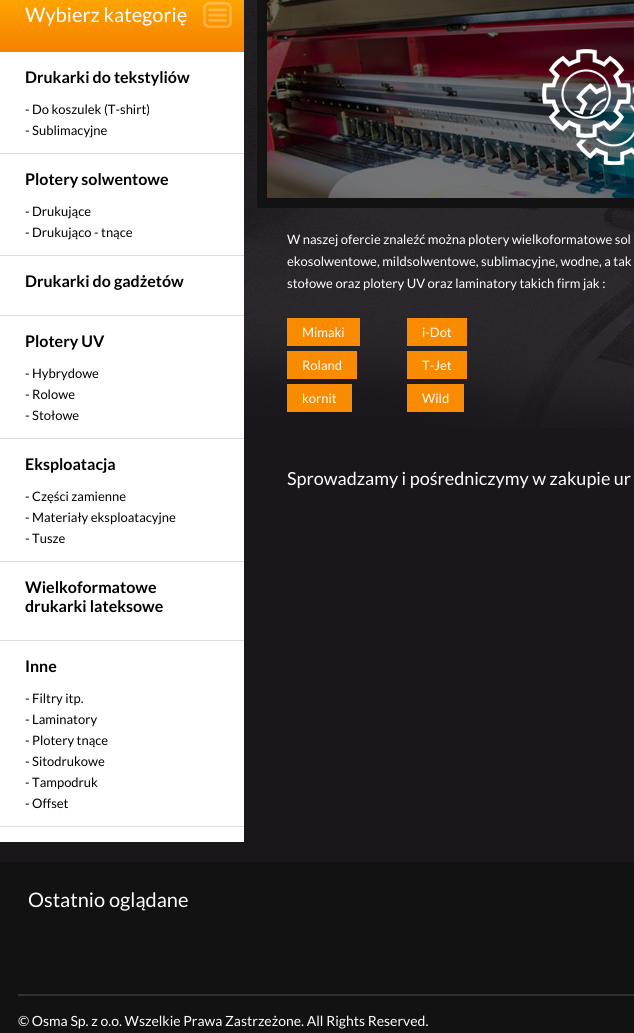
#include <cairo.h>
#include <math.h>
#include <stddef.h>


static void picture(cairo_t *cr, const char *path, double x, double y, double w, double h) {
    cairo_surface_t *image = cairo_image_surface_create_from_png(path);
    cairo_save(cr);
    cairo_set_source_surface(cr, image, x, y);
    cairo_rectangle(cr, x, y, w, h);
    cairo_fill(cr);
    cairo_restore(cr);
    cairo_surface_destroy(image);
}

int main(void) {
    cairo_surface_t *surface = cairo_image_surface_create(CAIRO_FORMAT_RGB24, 634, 1033);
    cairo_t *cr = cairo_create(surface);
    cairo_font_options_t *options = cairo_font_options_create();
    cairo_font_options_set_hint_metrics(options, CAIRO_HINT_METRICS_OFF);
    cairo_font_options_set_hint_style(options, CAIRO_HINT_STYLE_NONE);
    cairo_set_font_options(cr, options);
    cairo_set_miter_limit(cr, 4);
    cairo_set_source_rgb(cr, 0.102, 0.09, 0.106);
    cairo_paint(cr);
    picture(cr, "img1.png", 244, 0, 390, 428);
    cairo_set_source_rgb(cr, 1, 1, 1);
    cairo_rectangle(cr, 0, 52, 244, 790);
    cairo_fill(cr);
    picture(cr, "img2.png", 0, 0, 244, 52);
    cairo_select_font_face(cr, "Lato", CAIRO_FONT_SLANT_NORMAL, CAIRO_FONT_WEIGHT_NORMAL);
    cairo_set_font_size(cr, 20);
    cairo_move_to(cr, 25, 22);
    cairo_show_text(cr, "Wybierz kategorię");
    cairo_set_source_rgb(cr, 0.871, 0.871, 0.871);
    cairo_rectangle(cr, 0, 153, 244, 1);
    cairo_fill(cr);
    cairo_select_font_face(cr, "Lato", CAIRO_FONT_SLANT_NORMAL, CAIRO_FONT_WEIGHT_BOLD);
    cairo_set_font_size(cr, 16);
    cairo_set_source_rgb(cr, 0, 0, 0);
    cairo_move_to(cr, 25, 83);
    cairo_show_text(cr, "Drukarki do tekstyliów");
    cairo_select_font_face(cr, "Lato", CAIRO_FONT_SLANT_NORMAL, CAIRO_FONT_WEIGHT_NORMAL);
    cairo_set_font_size(cr, 13);
    cairo_move_to(cr, 25, 114);
    cairo_show_text(cr, "- Do koszulek (T-shirt)");
    cairo_move_to(cr, 25, 135);
    cairo_show_text(cr, "- Sublimacyjne");
    cairo_set_source_rgb(cr, 0.871, 0.871, 0.871);
    cairo_rectangle(cr, 0, 255, 244, 1);
    cairo_fill(cr);
    cairo_select_font_face(cr, "Lato", CAIRO_FONT_SLANT_NORMAL, CAIRO_FONT_WEIGHT_BOLD);
    cairo_set_font_size(cr, 16);
    cairo_set_source_rgb(cr, 0, 0, 0);
    cairo_move_to(cr, 25, 185);
    cairo_show_text(cr, "Plotery solwentowe");
    cairo_select_font_face(cr, "Lato", CAIRO_FONT_SLANT_NORMAL, CAIRO_FONT_WEIGHT_NORMAL);
    cairo_set_font_size(cr, 13);
    cairo_move_to(cr, 25, 216);
    cairo_show_text(cr, "- Drukujące");
    cairo_move_to(cr, 25, 237);
    cairo_show_text(cr, "- Drukująco - tnące");
    cairo_set_source_rgb(cr, 0.871, 0.871, 0.871);
    cairo_rectangle(cr, 0, 315, 244, 1);
    cairo_fill(cr);
    cairo_select_font_face(cr, "Lato", CAIRO_FONT_SLANT_NORMAL, CAIRO_FONT_WEIGHT_BOLD);
    cairo_set_font_size(cr, 16);
    cairo_set_source_rgb(cr, 0, 0, 0);
    cairo_move_to(cr, 25, 287);
    cairo_show_text(cr, "Drukarki do gadżetów");
    cairo_set_source_rgb(cr, 0.871, 0.871, 0.871);
    cairo_rectangle(cr, 0, 438, 244, 1);
    cairo_fill(cr);
    cairo_set_source_rgb(cr, 0, 0, 0);
    cairo_move_to(cr, 25, 347);
    cairo_show_text(cr, "Plotery UV");
    cairo_select_font_face(cr, "Lato", CAIRO_FONT_SLANT_NORMAL, CAIRO_FONT_WEIGHT_NORMAL);
    cairo_set_font_size(cr, 13);
    cairo_move_to(cr, 25, 378);
    cairo_show_text(cr, "- Hybrydowe");
    cairo_move_to(cr, 25, 399);
    cairo_show_text(cr, "- Rolowe");
    cairo_move_to(cr, 25, 420);
    cairo_show_text(cr, "- Stołowe");
    cairo_set_source_rgb(cr, 0.871, 0.871, 0.871);
    cairo_rectangle(cr, 0, 561, 244, 1);
    cairo_fill(cr);
    cairo_select_font_face(cr, "Lato", CAIRO_FONT_SLANT_NORMAL, CAIRO_FONT_WEIGHT_BOLD);
    cairo_set_font_size(cr, 16);
    cairo_set_source_rgb(cr, 0, 0, 0);
    cairo_move_to(cr, 25, 470);
    cairo_show_text(cr, "Eksploatacja");
    cairo_select_font_face(cr, "Lato", CAIRO_FONT_SLANT_NORMAL, CAIRO_FONT_WEIGHT_NORMAL);
    cairo_set_font_size(cr, 13);
    cairo_move_to(cr, 25, 501);
    cairo_show_text(cr, "- Części zamienne");
    cairo_move_to(cr, 25, 522);
    cairo_show_text(cr, "- Materiały eksploatacyjne");
    cairo_move_to(cr, 25, 543);
    cairo_show_text(cr, "- Tusze");
    cairo_set_source_rgb(cr, 0.871, 0.871, 0.871);
    cairo_rectangle(cr, 0, 640, 244, 1);
    cairo_fill(cr);
    cairo_select_font_face(cr, "Lato", CAIRO_FONT_SLANT_NORMAL, CAIRO_FONT_WEIGHT_BOLD);
    cairo_set_font_size(cr, 16);
    cairo_set_source_rgb(cr, 0, 0, 0);
    cairo_move_to(cr, 25, 593);
    cairo_show_text(cr, "Wielkoformatowe");
    cairo_move_to(cr, 25, 612);
    cairo_show_text(cr, "drukarki lateksowe");
    cairo_set_source_rgb(cr, 0.871, 0.871, 0.871);
    cairo_rectangle(cr, 0, 826, 244, 1);
    cairo_fill(cr);
    cairo_set_source_rgb(cr, 0, 0, 0);
    cairo_move_to(cr, 25, 672);
    cairo_show_text(cr, "Inne");
    cairo_select_font_face(cr, "Lato", CAIRO_FONT_SLANT_NORMAL, CAIRO_FONT_WEIGHT_NORMAL);
    cairo_set_font_size(cr, 13);
    cairo_move_to(cr, 25, 703);
    cairo_show_text(cr, "- Filtry itp.");
    cairo_move_to(cr, 25, 724);
    cairo_show_text(cr, "- Laminatory");
    cairo_move_to(cr, 25, 745);
    cairo_show_text(cr, "- Plotery tnące");
    cairo_move_to(cr, 25, 766);
    cairo_show_text(cr, "- Sitodrukowe");
    cairo_move_to(cr, 25, 787);
    cairo_show_text(cr, "- Tampodruk");
    cairo_move_to(cr, 25, 808);
    cairo_show_text(cr, "- Offset");
    picture(cr, "img3.png", 257, 0, 377, 208);
    cairo_set_source_rgb(cr, 1, 1, 1);
    cairo_move_to(cr, 287, 244);
    cairo_show_text(cr, "W naszej ofercie znaleźć można plotery wielkoformatowe sol");
    cairo_move_to(cr, 287, 266);
    cairo_show_text(cr, "ekosolwentowe, mildsolwentowe, sublimacyjne, wodne, a tak");
    cairo_move_to(cr, 287, 288);
    cairo_show_text(cr, "stołowe oraz plotery UV oraz laminatory takich firm jak :");
    cairo_set_source_rgb(cr, 0.973, 0.545, 0);
    cairo_rectangle(cr, 287, 318, 73, 28);
    cairo_fill(cr);
    cairo_set_source_rgb(cr, 1, 1, 1);
    cairo_move_to(cr, 302, 337);
    cairo_show_text(cr, "Mimaki");
    cairo_set_source_rgb(cr, 0.973, 0.545, 0);
    cairo_rectangle(cr, 407, 318, 60, 28);
    cairo_fill(cr);
    cairo_set_source_rgb(cr, 1, 1, 1);
    cairo_move_to(cr, 422, 337);
    cairo_show_text(cr, "i-Dot");
    cairo_set_source_rgb(cr, 0.973, 0.545, 0);
    cairo_rectangle(cr, 287, 351, 70, 28);
    cairo_fill(cr);
    cairo_set_source_rgb(cr, 1, 1, 1);
    cairo_move_to(cr, 302, 370);
    cairo_show_text(cr, "Roland");
    cairo_set_source_rgb(cr, 0.973, 0.545, 0);
    cairo_rectangle(cr, 407, 351, 60, 28);
    cairo_fill(cr);
    cairo_set_source_rgb(cr, 1, 1, 1);
    cairo_move_to(cr, 422, 370);
    cairo_show_text(cr, "T-Jet");
    cairo_set_source_rgb(cr, 0.973, 0.545, 0);
    cairo_rectangle(cr, 287, 384, 65, 28);
    cairo_fill(cr);
    cairo_set_source_rgb(cr, 1, 1, 1);
    cairo_move_to(cr, 302, 403);
    cairo_show_text(cr, "kornit");
    cairo_set_source_rgb(cr, 0.973, 0.545, 0);
    cairo_rectangle(cr, 407, 384, 57, 28);
    cairo_fill(cr);
    cairo_set_source_rgb(cr, 1, 1, 1);
    cairo_move_to(cr, 422, 403);
    cairo_show_text(cr, "Wild");
    cairo_set_font_size(cr, 18);
    cairo_move_to(cr, 287, 485);
    cairo_show_text(cr, "Sprowadzamy i pośredniczymy w zakupie ur");
    cairo_set_source_rgb(cr, 0.071, 0.071, 0.071);
    cairo_rectangle(cr, 0, 862, 634, 171);
    cairo_fill(cr);
    cairo_set_source_rgb(cr, 0.188, 0.188, 0.188);
    cairo_rectangle(cr, 18, 994, 616, 2);
    cairo_fill(cr);
    cairo_set_font_size(cr, 20);
    cairo_set_source_rgb(cr, 1, 1, 1);
    cairo_move_to(cr, 28, 907);
    cairo_show_text(cr, "Ostatnio oglądane");
    cairo_set_font_size(cr, 14);
    cairo_move_to(cr, 18, 1026);
    cairo_show_text(cr, "© Osma Sp. z o.o. Wszelkie Prawa Zastrzeżone. All Rights Reserved.");
    cairo_surface_write_to_png(surface, "page.png");
    cairo_font_options_destroy(options);
    cairo_destroy(cr);
    cairo_surface_destroy(surface);
    return 0;
}
